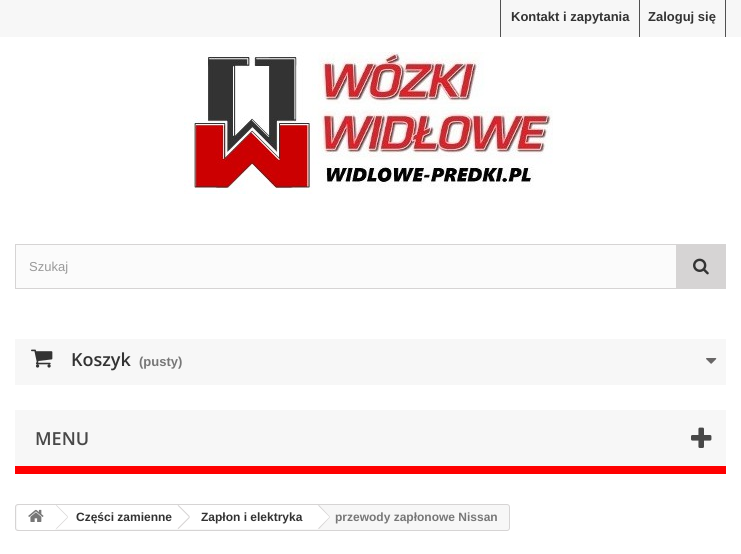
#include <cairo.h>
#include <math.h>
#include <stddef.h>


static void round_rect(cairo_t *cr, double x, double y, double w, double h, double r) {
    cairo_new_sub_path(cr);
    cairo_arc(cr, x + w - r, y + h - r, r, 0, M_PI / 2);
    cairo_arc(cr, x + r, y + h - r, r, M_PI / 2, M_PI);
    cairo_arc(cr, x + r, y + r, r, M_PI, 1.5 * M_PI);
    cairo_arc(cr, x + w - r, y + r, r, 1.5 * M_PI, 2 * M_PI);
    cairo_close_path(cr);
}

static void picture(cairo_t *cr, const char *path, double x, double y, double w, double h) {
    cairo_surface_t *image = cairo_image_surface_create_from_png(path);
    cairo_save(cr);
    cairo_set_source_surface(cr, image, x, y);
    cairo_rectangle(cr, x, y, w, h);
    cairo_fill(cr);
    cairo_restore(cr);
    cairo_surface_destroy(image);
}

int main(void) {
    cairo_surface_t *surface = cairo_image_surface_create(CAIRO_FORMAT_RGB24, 741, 554);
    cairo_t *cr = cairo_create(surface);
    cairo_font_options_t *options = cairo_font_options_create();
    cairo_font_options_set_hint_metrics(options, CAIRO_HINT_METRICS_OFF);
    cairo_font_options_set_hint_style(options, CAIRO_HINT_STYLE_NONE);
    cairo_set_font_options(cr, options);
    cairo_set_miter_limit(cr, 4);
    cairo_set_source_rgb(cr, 1, 1, 1);
    cairo_paint(cr);
    cairo_set_source_rgb(cr, 0.965, 0.965, 0.965);
    cairo_rectangle(cr, 0, 0, 741, 37);
    cairo_fill(cr);
    cairo_set_source_rgb(cr, 0.318, 0.318, 0.318);
    cairo_rectangle(cr, 500, 0, 1, 37);
    cairo_fill(cr);
    cairo_select_font_face(cr, "Liberation Sans", CAIRO_FONT_SLANT_NORMAL, CAIRO_FONT_WEIGHT_BOLD);
    cairo_set_font_size(cr, 13);
    cairo_set_source_rgb(cr, 0.2, 0.2, 0.2);
    cairo_move_to(cr, 511, 21);
    cairo_show_text(cr, "Kontakt i zapytania");
    cairo_set_source_rgb(cr, 0.318, 0.318, 0.318);
    cairo_rectangle(cr, 725, 0, 1, 37);
    cairo_fill(cr);
    cairo_rectangle(cr, 639, 0, 1, 37);
    cairo_fill(cr);
    cairo_set_source_rgb(cr, 0.2, 0.2, 0.2);
    cairo_move_to(cr, 648, 21);
    cairo_show_text(cr, "Zaloguj się");
    picture(cr, "img1.png", 184, 52, 369, 142);
    cairo_set_source_rgb(cr, 0.984, 0.984, 0.984);
    cairo_rectangle(cr, 16, 245, 660, 43);
    cairo_fill(cr);
    cairo_rectangle(cr, 15.5, 244.5, 710, 44);
    cairo_set_source_rgb(cr, 0.839, 0.831, 0.831);
    cairo_set_line_width(cr, 1);
    cairo_stroke(cr);
    cairo_select_font_face(cr, "Liberation Sans", CAIRO_FONT_SLANT_NORMAL, CAIRO_FONT_WEIGHT_NORMAL);
    cairo_set_source_rgb(cr, 0.6, 0.6, 0.6);
    cairo_move_to(cr, 29, 271);
    cairo_show_text(cr, "Szukaj");
    cairo_set_source_rgb(cr, 0.839, 0.831, 0.831);
    cairo_rectangle(cr, 676, 245, 49, 43);
    cairo_fill(cr);
    picture(cr, "img2.png", 693, 258, 16, 17);
    cairo_set_source_rgb(cr, 0.965, 0.965, 0.965);
    cairo_rectangle(cr, 15, 339, 711, 46);
    cairo_fill(cr);
    picture(cr, "img3.png", 31, 349, 22, 19);
    cairo_select_font_face(cr, "Open Sans SemiBold", CAIRO_FONT_SLANT_NORMAL, CAIRO_FONT_WEIGHT_NORMAL);
    cairo_set_font_size(cr, 18);
    cairo_set_source_rgb(cr, 0.2, 0.2, 0.2);
    cairo_move_to(cr, 71, 366);
    cairo_show_text(cr, "Koszyk");
    cairo_select_font_face(cr, "Liberation Sans", CAIRO_FONT_SLANT_NORMAL, CAIRO_FONT_WEIGHT_BOLD);
    cairo_set_font_size(cr, 13);
    cairo_set_source_rgb(cr, 0.467, 0.467, 0.467);
    cairo_move_to(cr, 139, 366);
    cairo_show_text(cr, "(pusty)");
    picture(cr, "img4.png", 706, 358, 11, 6);
    cairo_set_source_rgb(cr, 0.965, 0.965, 0.965);
    cairo_rectangle(cr, 15, 410, 711, 56);
    cairo_fill(cr);
    cairo_set_source_rgb(cr, 1, 0, 0);
    cairo_rectangle(cr, 15, 466, 711, 8);
    cairo_fill(cr);
    cairo_select_font_face(cr, "Open Sans SemiBold", CAIRO_FONT_SLANT_NORMAL, CAIRO_FONT_WEIGHT_NORMAL);
    cairo_set_font_size(cr, 18);
    cairo_set_source_rgb(cr, 0.282, 0.282, 0.282);
    cairo_move_to(cr, 35, 445);
    cairo_show_text(cr, "MENU");
    picture(cr, "img5.png", 691, 427, 21, 21);
    cairo_set_source_rgb(cr, 0.965, 0.965, 0.965);
    round_rect(cr, 15.5, 504.5, 494, 26, 2.5);
    cairo_fill_preserve(cr);
    cairo_set_source_rgb(cr, 0.839, 0.831, 0.831);
    cairo_stroke(cr);
    cairo_set_source_rgb(cr, 1, 1, 1);
    cairo_new_path(cr);
    cairo_move_to(cr, 20, 505);
    cairo_line_to(cr, 55, 505);
    cairo_line_to(cr, 55, 530);
    cairo_line_to(cr, 20, 530);
    cairo_curve_to(cr, 18.5, 530, 17, 528.5, 17, 527);
    cairo_line_to(cr, 17, 508);
    cairo_curve_to(cr, 17, 506.5, 18.5, 505, 20, 505);
    cairo_close_path(cr);
    cairo_fill(cr);
    picture(cr, "img6.png", 28, 509, 16, 13);
    cairo_rectangle(cr, 55, 505, 124, 24);
    cairo_fill(cr);
    cairo_set_source_rgb(cr, 0.839, 0.831, 0.831);
    cairo_new_path(cr);
    cairo_move_to(cr, 56.5, 505);
    cairo_line_to(cr, 68, 516.5);
    cairo_line_to(cr, 67.5, 517);
    cairo_line_to(cr, 56, 505.5);
    cairo_close_path(cr);
    cairo_move_to(cr, 67.5, 517);
    cairo_line_to(cr, 68, 517.5);
    cairo_line_to(cr, 56.5, 529);
    cairo_line_to(cr, 56, 528.5);
    cairo_close_path(cr);
    cairo_fill(cr);
    cairo_select_font_face(cr, "Liberation Sans", CAIRO_FONT_SLANT_NORMAL, CAIRO_FONT_WEIGHT_BOLD);
    cairo_set_font_size(cr, 12);
    cairo_set_source_rgb(cr, 0.2, 0.2, 0.2);
    cairo_move_to(cr, 76, 521);
    cairo_show_text(cr, "Części zamienne");
    cairo_set_source_rgb(cr, 1, 1, 1);
    cairo_new_path(cr);
    cairo_move_to(cr, 189, 505.5);
    cairo_line_to(cr, 199, 515.5);
    cairo_curve_to(cr, 200, 516.5, 200, 517.5, 199, 518.5);
    cairo_line_to(cr, 189, 528.5);
    cairo_curve_to(cr, 188.5, 529, 187, 529, 186.5, 528.5);
    cairo_line_to(cr, 176.5, 518.5);
    cairo_curve_to(cr, 175.5, 517.5, 175.5, 516.5, 176.5, 515.5);
    cairo_line_to(cr, 186.5, 505.5);
    cairo_curve_to(cr, 187, 505, 188.5, 505, 189, 505.5);
    cairo_close_path(cr);
    cairo_fill(cr);
    cairo_rectangle(cr, 179, 505, 138, 24);
    cairo_fill(cr);
    cairo_set_source_rgb(cr, 0.839, 0.831, 0.831);
    cairo_new_path(cr);
    cairo_move_to(cr, 178.5, 505);
    cairo_line_to(cr, 190, 516.5);
    cairo_line_to(cr, 189, 517);
    cairo_line_to(cr, 177.5, 505.5);
    cairo_close_path(cr);
    cairo_move_to(cr, 189, 517);
    cairo_line_to(cr, 190, 517.5);
    cairo_line_to(cr, 178.5, 529);
    cairo_line_to(cr, 177.5, 528.5);
    cairo_close_path(cr);
    cairo_fill(cr);
    cairo_set_source_rgb(cr, 0.2, 0.2, 0.2);
    cairo_move_to(cr, 201, 521);
    cairo_show_text(cr, "Zapłon i elektryka");
    cairo_set_source_rgb(cr, 1, 1, 1);
    cairo_new_path(cr);
    cairo_move_to(cr, 319.5, 505.5);
    cairo_line_to(cr, 329.5, 515.5);
    cairo_curve_to(cr, 330, 516.5, 330, 517.5, 329.5, 518.5);
    cairo_line_to(cr, 319.5, 528.5);
    cairo_curve_to(cr, 318.5, 529, 317.5, 529, 316.5, 528.5);
    cairo_line_to(cr, 307, 518.5);
    cairo_curve_to(cr, 306, 517.5, 306, 516.5, 307, 515.5);
    cairo_line_to(cr, 316.5, 505.5);
    cairo_curve_to(cr, 317.5, 505, 318.5, 505, 319.5, 505.5);
    cairo_close_path(cr);
    cairo_fill(cr);
    cairo_set_source_rgb(cr, 0.839, 0.831, 0.831);
    cairo_new_path(cr);
    cairo_move_to(cr, 319, 505);
    cairo_line_to(cr, 330, 516.5);
    cairo_line_to(cr, 329.5, 517);
    cairo_line_to(cr, 318, 505.5);
    cairo_close_path(cr);
    cairo_move_to(cr, 329.5, 517);
    cairo_line_to(cr, 330, 517.5);
    cairo_line_to(cr, 319, 529);
    cairo_line_to(cr, 318, 528.5);
    cairo_close_path(cr);
    cairo_fill(cr);
    cairo_set_source_rgb(cr, 0.467, 0.467, 0.467);
    cairo_move_to(cr, 335, 521);
    cairo_show_text(cr, "przewody zapłonowe Nissan");
    cairo_surface_write_to_png(surface, "page.png");
    cairo_font_options_destroy(options);
    cairo_destroy(cr);
    cairo_surface_destroy(surface);
    return 0;
}
